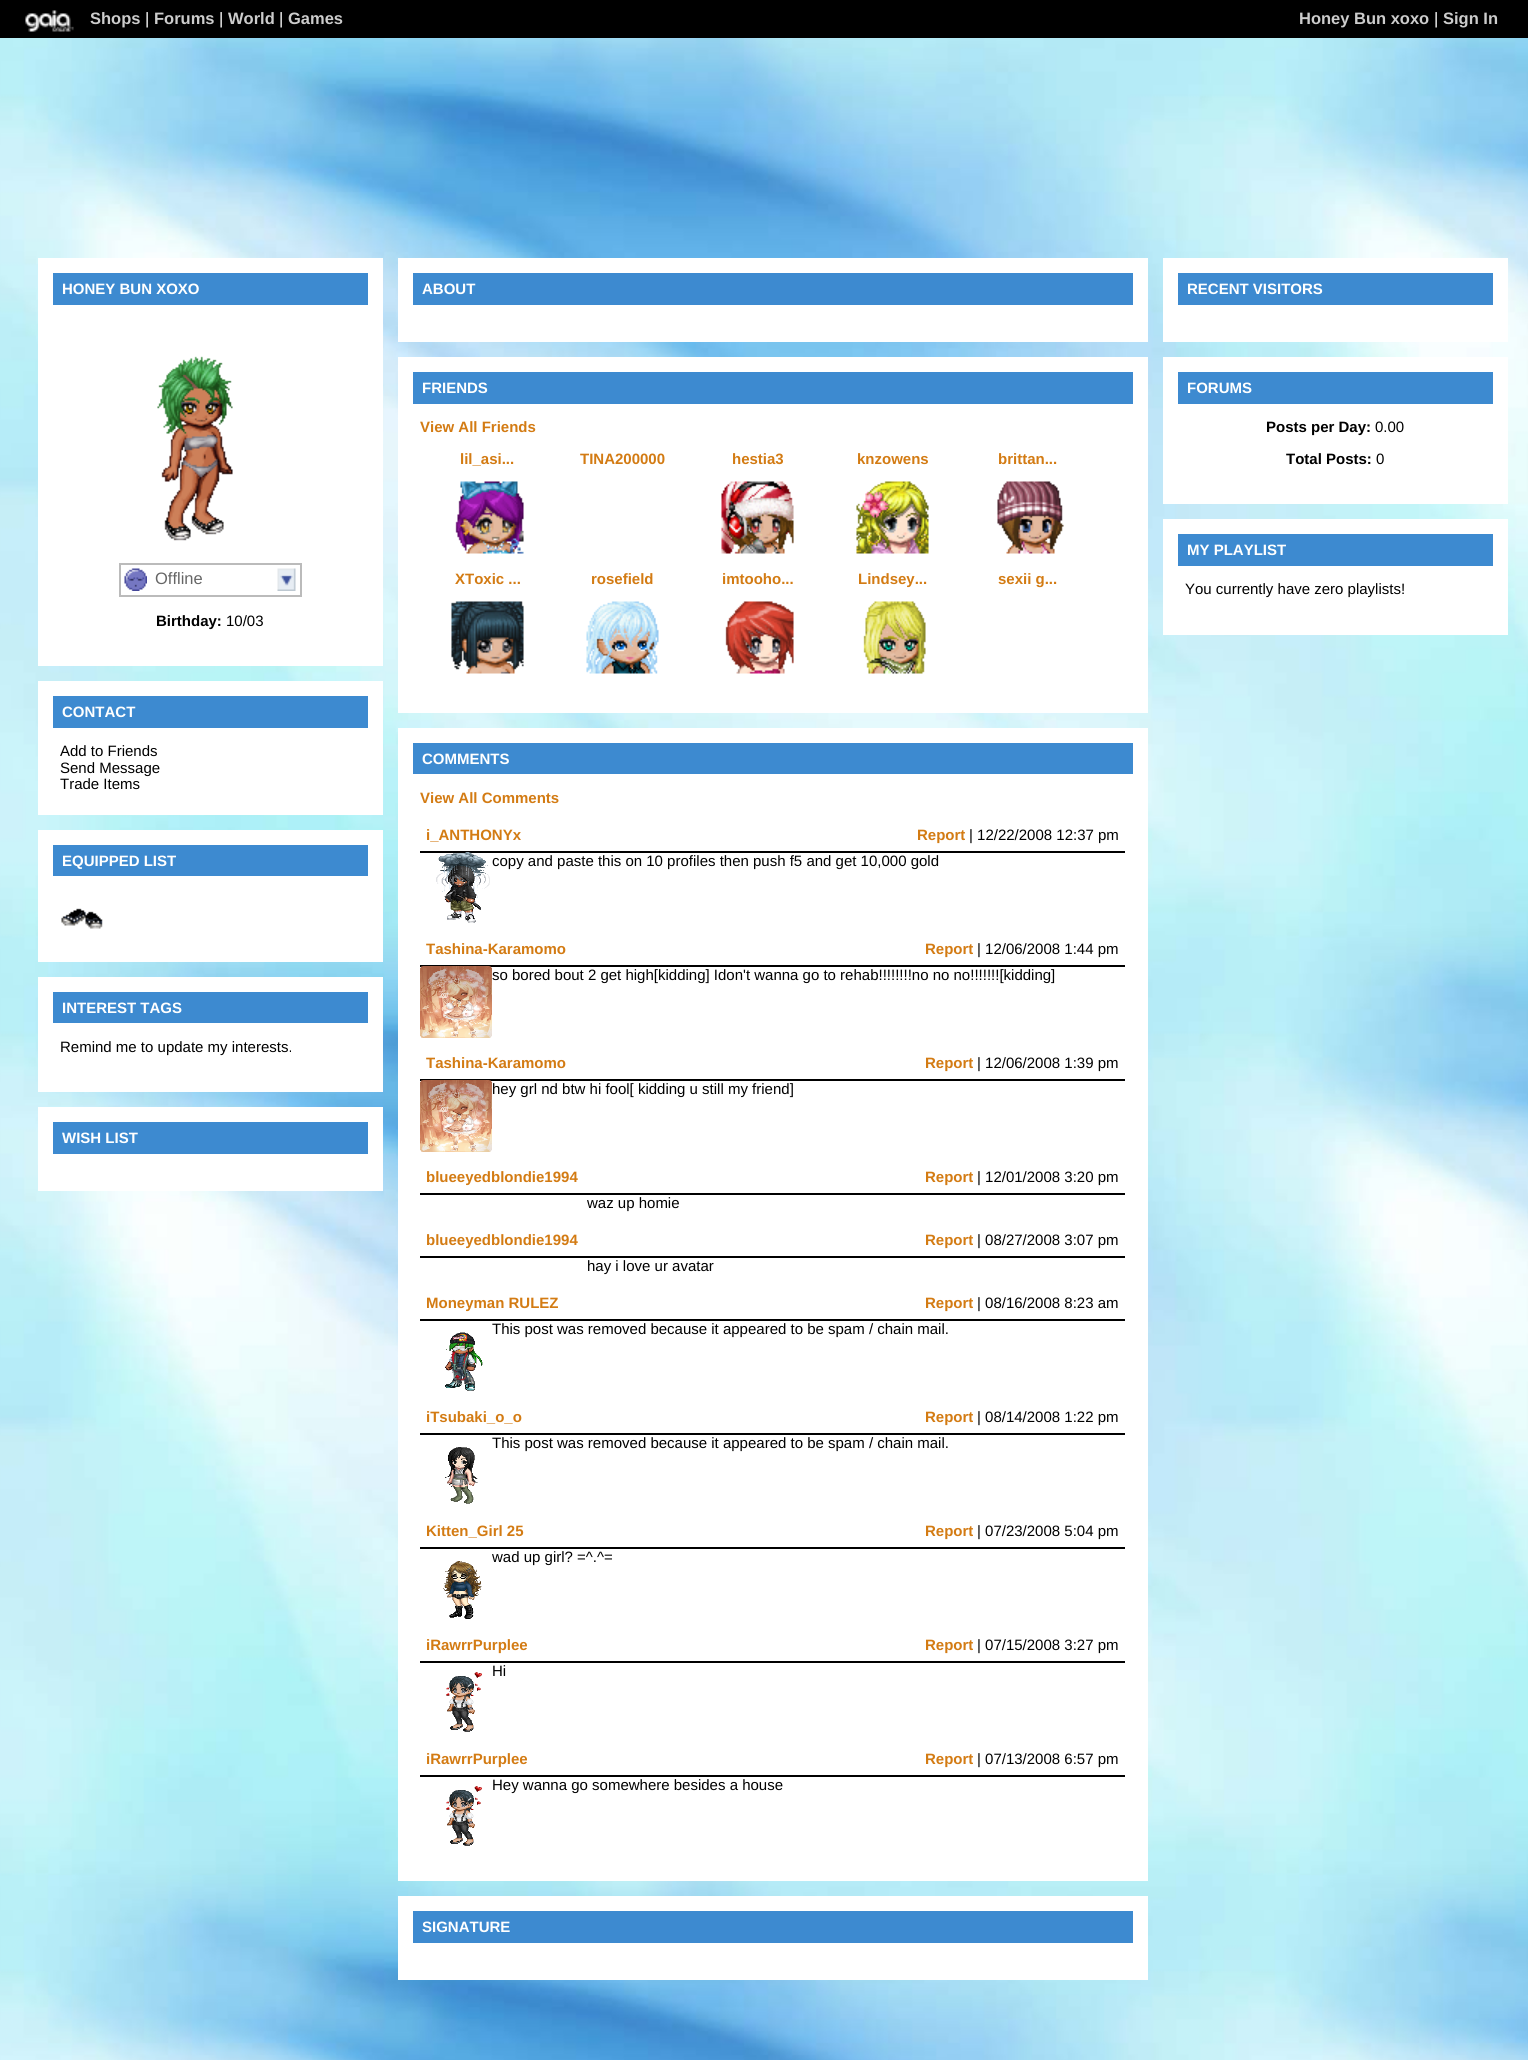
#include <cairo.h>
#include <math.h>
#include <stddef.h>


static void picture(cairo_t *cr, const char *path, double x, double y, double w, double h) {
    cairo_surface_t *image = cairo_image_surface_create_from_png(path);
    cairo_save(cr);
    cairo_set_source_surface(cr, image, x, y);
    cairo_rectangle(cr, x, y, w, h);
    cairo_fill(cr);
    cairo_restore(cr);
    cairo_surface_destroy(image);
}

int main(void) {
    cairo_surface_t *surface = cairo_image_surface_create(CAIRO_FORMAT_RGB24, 1528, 2060);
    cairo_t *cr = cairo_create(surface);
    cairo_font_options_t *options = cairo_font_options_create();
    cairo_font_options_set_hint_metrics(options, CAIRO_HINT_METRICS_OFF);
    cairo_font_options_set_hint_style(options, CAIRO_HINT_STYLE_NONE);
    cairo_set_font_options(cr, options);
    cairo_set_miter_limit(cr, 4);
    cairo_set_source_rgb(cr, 1, 1, 1);
    cairo_paint(cr);
    picture(cr, "img1.png", 0, 38, 1528, 2022);
    cairo_set_source_rgb(cr, 0, 0, 0);
    cairo_rectangle(cr, 0, 0, 1528, 38);
    cairo_fill(cr);
    picture(cr, "img2.png", 25, 10, 49, 22);
    cairo_select_font_face(cr, "Liberation Sans", CAIRO_FONT_SLANT_NORMAL, CAIRO_FONT_WEIGHT_BOLD);
    cairo_set_font_size(cr, 16.5);
    cairo_set_source_rgb(cr, 0.8, 0.8, 0.8);
    cairo_move_to(cr, 90, 24);
    cairo_show_text(cr, "Shops");
    cairo_select_font_face(cr, "Liberation Sans", CAIRO_FONT_SLANT_NORMAL, CAIRO_FONT_WEIGHT_NORMAL);
    cairo_set_source_rgb(cr, 1, 1, 1);
    cairo_move_to(cr, 145, 24);
    cairo_show_text(cr, "|");
    cairo_select_font_face(cr, "Liberation Sans", CAIRO_FONT_SLANT_NORMAL, CAIRO_FONT_WEIGHT_BOLD);
    cairo_set_source_rgb(cr, 0.8, 0.8, 0.8);
    cairo_move_to(cr, 154, 24);
    cairo_show_text(cr, "Forums");
    cairo_select_font_face(cr, "Liberation Sans", CAIRO_FONT_SLANT_NORMAL, CAIRO_FONT_WEIGHT_NORMAL);
    cairo_set_source_rgb(cr, 1, 1, 1);
    cairo_move_to(cr, 219, 24);
    cairo_show_text(cr, "|");
    cairo_select_font_face(cr, "Liberation Sans", CAIRO_FONT_SLANT_NORMAL, CAIRO_FONT_WEIGHT_BOLD);
    cairo_set_source_rgb(cr, 0.8, 0.8, 0.8);
    cairo_move_to(cr, 228, 24);
    cairo_show_text(cr, "World");
    cairo_select_font_face(cr, "Liberation Sans", CAIRO_FONT_SLANT_NORMAL, CAIRO_FONT_WEIGHT_NORMAL);
    cairo_set_source_rgb(cr, 1, 1, 1);
    cairo_move_to(cr, 279, 24);
    cairo_show_text(cr, "|");
    cairo_select_font_face(cr, "Liberation Sans", CAIRO_FONT_SLANT_NORMAL, CAIRO_FONT_WEIGHT_BOLD);
    cairo_set_source_rgb(cr, 0.8, 0.8, 0.8);
    cairo_move_to(cr, 288, 24);
    cairo_show_text(cr, "Games");
    cairo_move_to(cr, 1299, 24);
    cairo_show_text(cr, "Honey Bun xoxo");
    cairo_select_font_face(cr, "Liberation Sans", CAIRO_FONT_SLANT_NORMAL, CAIRO_FONT_WEIGHT_NORMAL);
    cairo_set_source_rgb(cr, 1, 1, 1);
    cairo_move_to(cr, 1434, 24);
    cairo_show_text(cr, "|");
    cairo_select_font_face(cr, "Liberation Sans", CAIRO_FONT_SLANT_NORMAL, CAIRO_FONT_WEIGHT_BOLD);
    cairo_set_source_rgb(cr, 0.8, 0.8, 0.8);
    cairo_move_to(cr, 1443, 24);
    cairo_show_text(cr, "Sign In");
    cairo_set_source_rgb(cr, 1, 1, 1);
    cairo_rectangle(cr, 38, 258, 345, 408);
    cairo_fill(cr);
    cairo_set_source_rgb(cr, 0.239, 0.541, 0.816);
    cairo_rectangle(cr, 53, 273, 315, 32);
    cairo_fill(cr);
    cairo_set_font_size(cr, 15);
    cairo_set_source_rgb(cr, 1, 1, 1);
    cairo_move_to(cr, 62, 294);
    cairo_show_text(cr, "HONEY BUN XOXO");
    picture(cr, "img3.png", 157, 356, 76, 185);
    cairo_rectangle(cr, 120, 564, 181, 32);
    cairo_set_source_rgb(cr, 0.733, 0.733, 0.733);
    cairo_stroke(cr);
    picture(cr, "img4.png", 277, 568, 19, 23);
    picture(cr, "img5.png", 124, 568, 23, 23);
    cairo_select_font_face(cr, "Liberation Sans", CAIRO_FONT_SLANT_NORMAL, CAIRO_FONT_WEIGHT_NORMAL);
    cairo_set_font_size(cr, 16.5);
    cairo_set_source_rgb(cr, 0.4, 0.4, 0.4);
    cairo_move_to(cr, 155, 584);
    cairo_show_text(cr, "Offline");
    cairo_select_font_face(cr, "Liberation Sans", CAIRO_FONT_SLANT_NORMAL, CAIRO_FONT_WEIGHT_BOLD);
    cairo_set_font_size(cr, 15);
    cairo_set_source_rgb(cr, 0, 0, 0);
    cairo_move_to(cr, 156, 626);
    cairo_show_text(cr, "Birthday:");
    cairo_select_font_face(cr, "Liberation Sans", CAIRO_FONT_SLANT_NORMAL, CAIRO_FONT_WEIGHT_NORMAL);
    cairo_move_to(cr, 226, 626);
    cairo_show_text(cr, "10/03");
    cairo_set_source_rgb(cr, 1, 1, 1);
    cairo_rectangle(cr, 38, 681, 345, 134);
    cairo_fill(cr);
    cairo_set_source_rgb(cr, 0.239, 0.541, 0.816);
    cairo_rectangle(cr, 53, 696, 315, 32);
    cairo_fill(cr);
    cairo_select_font_face(cr, "Liberation Sans", CAIRO_FONT_SLANT_NORMAL, CAIRO_FONT_WEIGHT_BOLD);
    cairo_set_source_rgb(cr, 1, 1, 1);
    cairo_move_to(cr, 62, 717);
    cairo_show_text(cr, "CONTACT");
    cairo_select_font_face(cr, "Liberation Sans", CAIRO_FONT_SLANT_NORMAL, CAIRO_FONT_WEIGHT_NORMAL);
    cairo_set_source_rgb(cr, 0, 0, 0);
    cairo_move_to(cr, 60, 756);
    cairo_show_text(cr, "Add to Friends");
    cairo_move_to(cr, 60, 773);
    cairo_show_text(cr, "Send Message");
    cairo_move_to(cr, 60, 789);
    cairo_show_text(cr, "Trade Items");
    cairo_set_source_rgb(cr, 1, 1, 1);
    cairo_rectangle(cr, 38, 830, 345, 132);
    cairo_fill(cr);
    cairo_set_source_rgb(cr, 0.239, 0.541, 0.816);
    cairo_rectangle(cr, 53, 845, 315, 31);
    cairo_fill(cr);
    cairo_select_font_face(cr, "Liberation Sans", CAIRO_FONT_SLANT_NORMAL, CAIRO_FONT_WEIGHT_BOLD);
    cairo_set_source_rgb(cr, 1, 1, 1);
    cairo_move_to(cr, 62, 866);
    cairo_show_text(cr, "EQUIPPED LIST");
    picture(cr, "img6.png", 61, 908, 42, 21);
    cairo_rectangle(cr, 38, 977, 345, 115);
    cairo_fill(cr);
    cairo_set_source_rgb(cr, 0.239, 0.541, 0.816);
    cairo_rectangle(cr, 53, 992, 315, 31);
    cairo_fill(cr);
    cairo_set_source_rgb(cr, 1, 1, 1);
    cairo_move_to(cr, 62, 1013);
    cairo_show_text(cr, "INTEREST TAGS");
    cairo_select_font_face(cr, "Liberation Sans", CAIRO_FONT_SLANT_NORMAL, CAIRO_FONT_WEIGHT_NORMAL);
    cairo_set_source_rgb(cr, 0, 0, 0);
    cairo_move_to(cr, 60, 1052);
    cairo_show_text(cr, "Remind me to update my interests.");
    cairo_set_source_rgb(cr, 1, 1, 1);
    cairo_rectangle(cr, 38, 1107, 345, 84);
    cairo_fill(cr);
    cairo_set_source_rgb(cr, 0.239, 0.541, 0.816);
    cairo_rectangle(cr, 53, 1122, 315, 32);
    cairo_fill(cr);
    cairo_select_font_face(cr, "Liberation Sans", CAIRO_FONT_SLANT_NORMAL, CAIRO_FONT_WEIGHT_BOLD);
    cairo_set_source_rgb(cr, 1, 1, 1);
    cairo_move_to(cr, 62, 1143);
    cairo_show_text(cr, "WISH LIST");
    cairo_rectangle(cr, 398, 258, 750, 84);
    cairo_fill(cr);
    cairo_set_source_rgb(cr, 0.239, 0.541, 0.816);
    cairo_rectangle(cr, 413, 273, 720, 32);
    cairo_fill(cr);
    cairo_set_source_rgb(cr, 1, 1, 1);
    cairo_move_to(cr, 422, 294);
    cairo_show_text(cr, "ABOUT");
    cairo_rectangle(cr, 398, 357, 750, 356);
    cairo_fill(cr);
    cairo_set_source_rgb(cr, 0.239, 0.541, 0.816);
    cairo_rectangle(cr, 413, 372, 720, 32);
    cairo_fill(cr);
    cairo_set_source_rgb(cr, 1, 1, 1);
    cairo_move_to(cr, 422, 393);
    cairo_show_text(cr, "FRIENDS");
    cairo_set_source_rgb(cr, 0.827, 0.482, 0.078);
    cairo_move_to(cr, 420, 432);
    cairo_show_text(cr, "View All Friends");
    cairo_move_to(cr, 460, 464);
    cairo_show_text(cr, "lil_asi...");
    picture(cr, "img7.png", 455, 481, 69, 73);
    cairo_move_to(cr, 580, 464);
    cairo_show_text(cr, "TINA200000");
    cairo_move_to(cr, 732, 464);
    cairo_show_text(cr, "hestia3");
    picture(cr, "img8.png", 721, 481, 73, 73);
    cairo_move_to(cr, 857, 464);
    cairo_show_text(cr, "knzowens");
    picture(cr, "img9.png", 856, 481, 73, 73);
    cairo_move_to(cr, 998, 464);
    cairo_show_text(cr, "brittan...");
    picture(cr, "img10.png", 997, 481, 67, 73);
    cairo_move_to(cr, 455, 584);
    cairo_show_text(cr, "XToxic ...");
    picture(cr, "img11.png", 451, 601, 73, 73);
    cairo_move_to(cr, 591, 584);
    cairo_show_text(cr, "rosefield");
    picture(cr, "img12.png", 586, 601, 73, 73);
    cairo_move_to(cr, 722, 584);
    cairo_show_text(cr, "imtooho...");
    picture(cr, "img13.png", 725, 601, 69, 73);
    cairo_move_to(cr, 858, 584);
    cairo_show_text(cr, "Lindsey...");
    picture(cr, "img14.png", 863, 601, 63, 73);
    cairo_move_to(cr, 998, 584);
    cairo_show_text(cr, "sexii g...");
    cairo_set_source_rgb(cr, 1, 1, 1);
    cairo_rectangle(cr, 398, 728, 750, 1153);
    cairo_fill(cr);
    cairo_set_source_rgb(cr, 0.239, 0.541, 0.816);
    cairo_rectangle(cr, 413, 743, 720, 31);
    cairo_fill(cr);
    cairo_set_source_rgb(cr, 1, 1, 1);
    cairo_move_to(cr, 422, 764);
    cairo_show_text(cr, "COMMENTS");
    cairo_set_source_rgb(cr, 0.827, 0.482, 0.078);
    cairo_move_to(cr, 420, 803);
    cairo_show_text(cr, "View All Comments");
    cairo_set_source_rgb(cr, 0, 0, 0);
    cairo_rectangle(cr, 420, 851, 705, 2);
    cairo_fill(cr);
    cairo_set_source_rgb(cr, 0.827, 0.482, 0.078);
    cairo_move_to(cr, 426, 840);
    cairo_show_text(cr, "i_ANTHONYx");
    cairo_move_to(cr, 917, 840);
    cairo_show_text(cr, "Report");
    cairo_select_font_face(cr, "Liberation Sans", CAIRO_FONT_SLANT_NORMAL, CAIRO_FONT_WEIGHT_NORMAL);
    cairo_set_source_rgb(cr, 0, 0, 0);
    cairo_move_to(cr, 969, 840);
    cairo_show_text(cr, "| 12/22/2008 12:37 pm");
    picture(cr, "img15.png", 436, 852, 54, 71);
    cairo_move_to(cr, 492, 866);
    cairo_show_text(cr, "copy and paste this on 10 profiles then push f5 and get 10,000 gold");
    cairo_rectangle(cr, 420, 965, 705, 2);
    cairo_fill(cr);
    cairo_select_font_face(cr, "Liberation Sans", CAIRO_FONT_SLANT_NORMAL, CAIRO_FONT_WEIGHT_BOLD);
    cairo_set_source_rgb(cr, 0.827, 0.482, 0.078);
    cairo_move_to(cr, 426, 954);
    cairo_show_text(cr, "Tashina-Karamomo");
    cairo_move_to(cr, 925, 954);
    cairo_show_text(cr, "Report");
    cairo_select_font_face(cr, "Liberation Sans", CAIRO_FONT_SLANT_NORMAL, CAIRO_FONT_WEIGHT_NORMAL);
    cairo_set_source_rgb(cr, 0, 0, 0);
    cairo_move_to(cr, 977, 954);
    cairo_show_text(cr, "| 12/06/2008 1:44 pm");
    picture(cr, "img16.png", 420, 966, 72, 72);
    cairo_move_to(cr, 492, 980);
    cairo_show_text(cr, "so bored bout 2 get high[kidding] Idon't wanna go to rehab!!!!!!!!no no no!!!!!!![kidding]");
    cairo_rectangle(cr, 420, 1079, 705, 2);
    cairo_fill(cr);
    cairo_select_font_face(cr, "Liberation Sans", CAIRO_FONT_SLANT_NORMAL, CAIRO_FONT_WEIGHT_BOLD);
    cairo_set_source_rgb(cr, 0.827, 0.482, 0.078);
    cairo_move_to(cr, 426, 1068);
    cairo_show_text(cr, "Tashina-Karamomo");
    cairo_move_to(cr, 925, 1068);
    cairo_show_text(cr, "Report");
    cairo_select_font_face(cr, "Liberation Sans", CAIRO_FONT_SLANT_NORMAL, CAIRO_FONT_WEIGHT_NORMAL);
    cairo_set_source_rgb(cr, 0, 0, 0);
    cairo_move_to(cr, 977, 1068);
    cairo_show_text(cr, "| 12/06/2008 1:39 pm");
    picture(cr, "img16.png", 420, 1080, 72, 72);
    cairo_move_to(cr, 492, 1094);
    cairo_show_text(cr, "hey grl nd btw hi fool[ kidding u still my friend]");
    cairo_rectangle(cr, 420, 1193, 705, 2);
    cairo_fill(cr);
    cairo_select_font_face(cr, "Liberation Sans", CAIRO_FONT_SLANT_NORMAL, CAIRO_FONT_WEIGHT_BOLD);
    cairo_set_source_rgb(cr, 0.827, 0.482, 0.078);
    cairo_move_to(cr, 426, 1182);
    cairo_show_text(cr, "blueeyedblondie1994");
    cairo_move_to(cr, 925, 1182);
    cairo_show_text(cr, "Report");
    cairo_select_font_face(cr, "Liberation Sans", CAIRO_FONT_SLANT_NORMAL, CAIRO_FONT_WEIGHT_NORMAL);
    cairo_set_source_rgb(cr, 0, 0, 0);
    cairo_move_to(cr, 977, 1182);
    cairo_show_text(cr, "| 12/01/2008 3:20 pm");
    cairo_move_to(cr, 587, 1208);
    cairo_show_text(cr, "waz up homie");
    cairo_rectangle(cr, 420, 1256, 705, 2);
    cairo_fill(cr);
    cairo_select_font_face(cr, "Liberation Sans", CAIRO_FONT_SLANT_NORMAL, CAIRO_FONT_WEIGHT_BOLD);
    cairo_set_source_rgb(cr, 0.827, 0.482, 0.078);
    cairo_move_to(cr, 426, 1245);
    cairo_show_text(cr, "blueeyedblondie1994");
    cairo_move_to(cr, 925, 1245);
    cairo_show_text(cr, "Report");
    cairo_select_font_face(cr, "Liberation Sans", CAIRO_FONT_SLANT_NORMAL, CAIRO_FONT_WEIGHT_NORMAL);
    cairo_set_source_rgb(cr, 0, 0, 0);
    cairo_move_to(cr, 977, 1245);
    cairo_show_text(cr, "| 08/27/2008 3:07 pm");
    cairo_move_to(cr, 587, 1271);
    cairo_show_text(cr, "hay i love ur avatar");
    cairo_rectangle(cr, 420, 1319, 705, 2);
    cairo_fill(cr);
    cairo_select_font_face(cr, "Liberation Sans", CAIRO_FONT_SLANT_NORMAL, CAIRO_FONT_WEIGHT_BOLD);
    cairo_set_source_rgb(cr, 0.827, 0.482, 0.078);
    cairo_move_to(cr, 426, 1308);
    cairo_show_text(cr, "Moneyman RULEZ");
    cairo_move_to(cr, 925, 1308);
    cairo_show_text(cr, "Report");
    cairo_select_font_face(cr, "Liberation Sans", CAIRO_FONT_SLANT_NORMAL, CAIRO_FONT_WEIGHT_NORMAL);
    cairo_set_source_rgb(cr, 0, 0, 0);
    cairo_move_to(cr, 977, 1308);
    cairo_show_text(cr, "| 08/16/2008 8:23 am");
    cairo_move_to(cr, 492, 1334);
    cairo_show_text(cr, "This post was removed because it appeared to be spam / chain mail.");
    picture(cr, "img17.png", 445, 1332, 38, 59);
    cairo_rectangle(cr, 420, 1433, 705, 2);
    cairo_fill(cr);
    cairo_select_font_face(cr, "Liberation Sans", CAIRO_FONT_SLANT_NORMAL, CAIRO_FONT_WEIGHT_BOLD);
    cairo_set_source_rgb(cr, 0.827, 0.482, 0.078);
    cairo_move_to(cr, 426, 1422);
    cairo_show_text(cr, "iTsubaki_o_o");
    cairo_move_to(cr, 925, 1422);
    cairo_show_text(cr, "Report");
    cairo_select_font_face(cr, "Liberation Sans", CAIRO_FONT_SLANT_NORMAL, CAIRO_FONT_WEIGHT_NORMAL);
    cairo_set_source_rgb(cr, 0, 0, 0);
    cairo_move_to(cr, 977, 1422);
    cairo_show_text(cr, "| 08/14/2008 1:22 pm");
    cairo_move_to(cr, 492, 1448);
    cairo_show_text(cr, "This post was removed because it appeared to be spam / chain mail.");
    picture(cr, "img18.png", 445, 1447, 33, 57);
    cairo_rectangle(cr, 420, 1547, 705, 2);
    cairo_fill(cr);
    cairo_select_font_face(cr, "Liberation Sans", CAIRO_FONT_SLANT_NORMAL, CAIRO_FONT_WEIGHT_BOLD);
    cairo_set_source_rgb(cr, 0.827, 0.482, 0.078);
    cairo_move_to(cr, 426, 1536);
    cairo_show_text(cr, "Kitten_Girl 25");
    cairo_move_to(cr, 925, 1536);
    cairo_show_text(cr, "Report");
    cairo_select_font_face(cr, "Liberation Sans", CAIRO_FONT_SLANT_NORMAL, CAIRO_FONT_WEIGHT_NORMAL);
    cairo_set_source_rgb(cr, 0, 0, 0);
    cairo_move_to(cr, 977, 1536);
    cairo_show_text(cr, "| 07/23/2008 5:04 pm");
    cairo_move_to(cr, 492, 1562);
    cairo_show_text(cr, "wad up girl? =^.^=");
    picture(cr, "img19.png", 443, 1561, 39, 58);
    cairo_rectangle(cr, 420, 1661, 705, 2);
    cairo_fill(cr);
    cairo_select_font_face(cr, "Liberation Sans", CAIRO_FONT_SLANT_NORMAL, CAIRO_FONT_WEIGHT_BOLD);
    cairo_set_source_rgb(cr, 0.827, 0.482, 0.078);
    cairo_move_to(cr, 426, 1650);
    cairo_show_text(cr, "iRawrrPurplee");
    cairo_move_to(cr, 925, 1650);
    cairo_show_text(cr, "Report");
    cairo_select_font_face(cr, "Liberation Sans", CAIRO_FONT_SLANT_NORMAL, CAIRO_FONT_WEIGHT_NORMAL);
    cairo_set_source_rgb(cr, 0, 0, 0);
    cairo_move_to(cr, 977, 1650);
    cairo_show_text(cr, "| 07/15/2008 3:27 pm");
    cairo_move_to(cr, 492, 1676);
    cairo_show_text(cr, "Hi");
    picture(cr, "img20.png", 446, 1672, 36, 60);
    cairo_rectangle(cr, 420, 1775, 705, 2);
    cairo_fill(cr);
    cairo_select_font_face(cr, "Liberation Sans", CAIRO_FONT_SLANT_NORMAL, CAIRO_FONT_WEIGHT_BOLD);
    cairo_set_source_rgb(cr, 0.827, 0.482, 0.078);
    cairo_move_to(cr, 426, 1764);
    cairo_show_text(cr, "iRawrrPurplee");
    cairo_move_to(cr, 925, 1764);
    cairo_show_text(cr, "Report");
    cairo_select_font_face(cr, "Liberation Sans", CAIRO_FONT_SLANT_NORMAL, CAIRO_FONT_WEIGHT_NORMAL);
    cairo_set_source_rgb(cr, 0, 0, 0);
    cairo_move_to(cr, 977, 1764);
    cairo_show_text(cr, "| 07/13/2008 6:57 pm");
    picture(cr, "img20.png", 446, 1786, 36, 60);
    cairo_move_to(cr, 492, 1790);
    cairo_show_text(cr, "Hey wanna go somewhere besides a house");
    cairo_set_source_rgb(cr, 1, 1, 1);
    cairo_rectangle(cr, 398, 1896, 750, 84);
    cairo_fill(cr);
    cairo_set_source_rgb(cr, 0.239, 0.541, 0.816);
    cairo_rectangle(cr, 413, 1911, 720, 32);
    cairo_fill(cr);
    cairo_select_font_face(cr, "Liberation Sans", CAIRO_FONT_SLANT_NORMAL, CAIRO_FONT_WEIGHT_BOLD);
    cairo_set_source_rgb(cr, 1, 1, 1);
    cairo_move_to(cr, 422, 1932);
    cairo_show_text(cr, "SIGNATURE");
    cairo_rectangle(cr, 1163, 258, 345, 84);
    cairo_fill(cr);
    cairo_set_source_rgb(cr, 0.239, 0.541, 0.816);
    cairo_rectangle(cr, 1178, 273, 315, 32);
    cairo_fill(cr);
    cairo_set_source_rgb(cr, 1, 1, 1);
    cairo_move_to(cr, 1187, 294);
    cairo_show_text(cr, "RECENT VISITORS");
    cairo_rectangle(cr, 1163, 357, 345, 147);
    cairo_fill(cr);
    cairo_set_source_rgb(cr, 0.239, 0.541, 0.816);
    cairo_rectangle(cr, 1178, 372, 315, 32);
    cairo_fill(cr);
    cairo_set_source_rgb(cr, 1, 1, 1);
    cairo_move_to(cr, 1187, 393);
    cairo_show_text(cr, "FORUMS");
    cairo_set_source_rgb(cr, 0, 0, 0);
    cairo_move_to(cr, 1266, 432);
    cairo_show_text(cr, "Posts per Day:");
    cairo_select_font_face(cr, "Liberation Sans", CAIRO_FONT_SLANT_NORMAL, CAIRO_FONT_WEIGHT_NORMAL);
    cairo_move_to(cr, 1375, 432);
    cairo_show_text(cr, "0.00");
    cairo_select_font_face(cr, "Liberation Sans", CAIRO_FONT_SLANT_NORMAL, CAIRO_FONT_WEIGHT_BOLD);
    cairo_move_to(cr, 1286, 464);
    cairo_show_text(cr, "Total Posts:");
    cairo_select_font_face(cr, "Liberation Sans", CAIRO_FONT_SLANT_NORMAL, CAIRO_FONT_WEIGHT_NORMAL);
    cairo_move_to(cr, 1376, 464);
    cairo_show_text(cr, "0");
    cairo_set_source_rgb(cr, 1, 1, 1);
    cairo_rectangle(cr, 1163, 519, 345, 116);
    cairo_fill(cr);
    cairo_set_source_rgb(cr, 0.239, 0.541, 0.816);
    cairo_rectangle(cr, 1178, 534, 315, 32);
    cairo_fill(cr);
    cairo_select_font_face(cr, "Liberation Sans", CAIRO_FONT_SLANT_NORMAL, CAIRO_FONT_WEIGHT_BOLD);
    cairo_set_source_rgb(cr, 1, 1, 1);
    cairo_move_to(cr, 1187, 555);
    cairo_show_text(cr, "MY PLAYLIST");
    cairo_select_font_face(cr, "Liberation Sans", CAIRO_FONT_SLANT_NORMAL, CAIRO_FONT_WEIGHT_NORMAL);
    cairo_set_source_rgb(cr, 0, 0, 0);
    cairo_move_to(cr, 1185, 594);
    cairo_show_text(cr, "You currently have zero playlists!");
    cairo_surface_write_to_png(surface, "page.png");
    cairo_font_options_destroy(options);
    cairo_destroy(cr);
    cairo_surface_destroy(surface);
    return 0;
}
